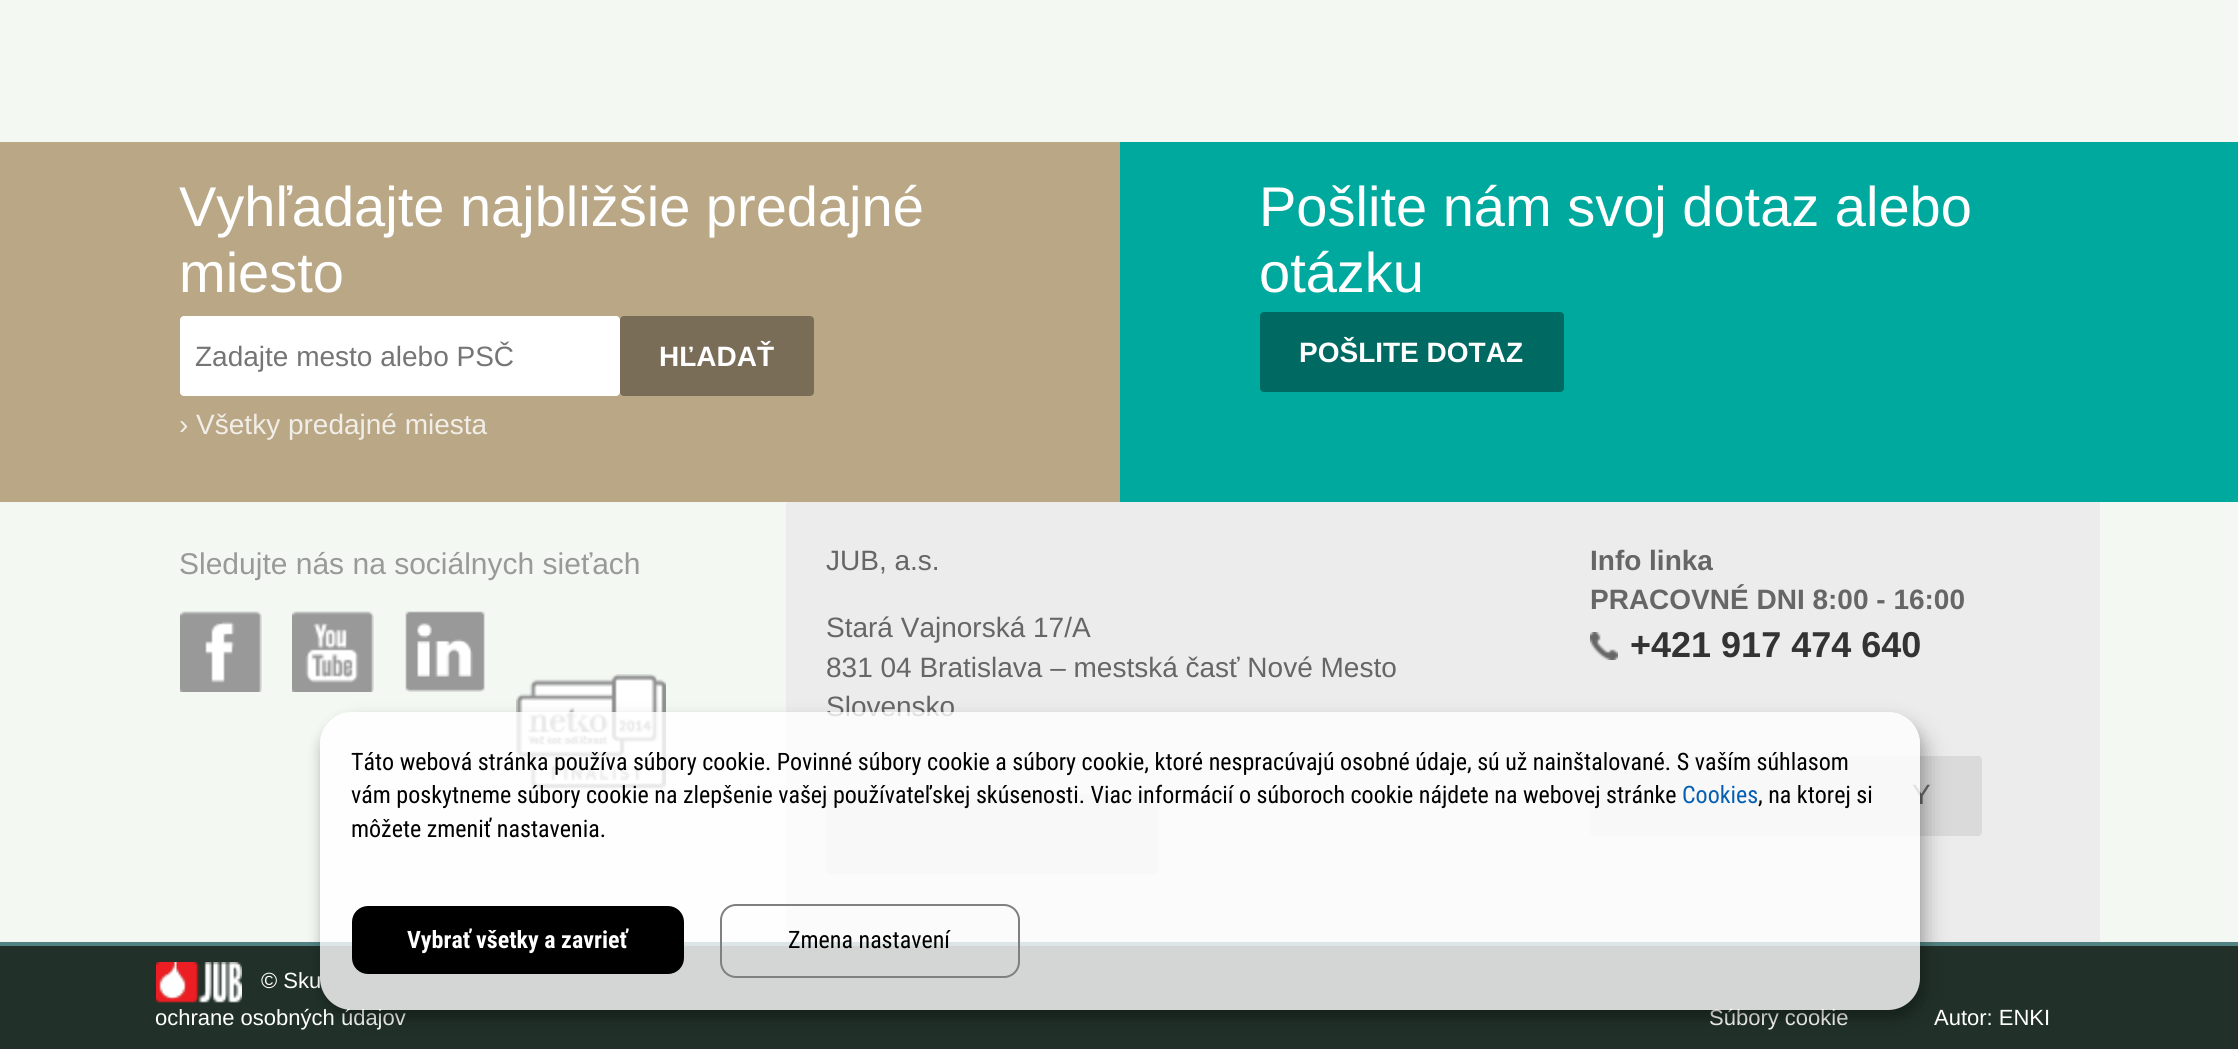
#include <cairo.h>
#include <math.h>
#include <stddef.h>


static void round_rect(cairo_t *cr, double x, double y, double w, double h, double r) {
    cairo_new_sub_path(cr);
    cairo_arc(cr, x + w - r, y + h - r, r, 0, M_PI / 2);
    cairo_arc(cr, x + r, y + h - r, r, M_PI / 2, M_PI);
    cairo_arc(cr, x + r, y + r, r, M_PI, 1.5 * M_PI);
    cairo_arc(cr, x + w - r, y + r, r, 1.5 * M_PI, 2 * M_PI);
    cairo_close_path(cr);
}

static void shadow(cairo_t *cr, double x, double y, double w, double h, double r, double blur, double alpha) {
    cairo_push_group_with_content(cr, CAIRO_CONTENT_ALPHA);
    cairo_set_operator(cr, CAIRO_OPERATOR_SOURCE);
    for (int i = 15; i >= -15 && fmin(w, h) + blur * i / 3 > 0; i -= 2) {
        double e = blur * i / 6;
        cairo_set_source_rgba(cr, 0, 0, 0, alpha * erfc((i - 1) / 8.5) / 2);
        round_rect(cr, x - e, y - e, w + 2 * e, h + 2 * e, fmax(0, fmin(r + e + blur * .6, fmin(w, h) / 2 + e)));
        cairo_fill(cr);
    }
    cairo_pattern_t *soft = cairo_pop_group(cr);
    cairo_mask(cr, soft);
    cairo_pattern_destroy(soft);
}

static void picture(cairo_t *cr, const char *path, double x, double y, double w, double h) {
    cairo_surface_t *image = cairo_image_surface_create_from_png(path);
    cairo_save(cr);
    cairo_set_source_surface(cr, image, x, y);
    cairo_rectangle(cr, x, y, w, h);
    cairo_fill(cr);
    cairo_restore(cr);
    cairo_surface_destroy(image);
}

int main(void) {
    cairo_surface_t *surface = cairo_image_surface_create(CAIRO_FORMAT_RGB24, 2238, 1049);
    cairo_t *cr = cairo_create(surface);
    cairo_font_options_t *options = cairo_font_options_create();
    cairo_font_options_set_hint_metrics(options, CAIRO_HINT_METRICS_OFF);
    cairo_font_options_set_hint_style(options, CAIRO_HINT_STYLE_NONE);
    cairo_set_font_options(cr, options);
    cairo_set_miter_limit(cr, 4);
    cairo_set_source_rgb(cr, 0.953, 0.969, 0.953);
    cairo_paint(cr);
    cairo_set_source_rgb(cr, 0.725, 0.655, 0.525);
    cairo_rectangle(cr, 0, 142, 1120, 360);
    cairo_fill(cr);
    cairo_select_font_face(cr, "Liberation Sans", CAIRO_FONT_SLANT_NORMAL, CAIRO_FONT_WEIGHT_NORMAL);
    cairo_set_font_size(cr, 56);
    cairo_set_source_rgb(cr, 1, 1, 1);
    cairo_move_to(cr, 179, 226);
    cairo_show_text(cr, "Vyhľadajte najbližšie predajné");
    cairo_move_to(cr, 179, 292);
    cairo_show_text(cr, "miesto");
    round_rect(cr, 180, 316, 440, 80, 4);
    cairo_fill(cr);
    cairo_set_font_size(cr, 28);
    cairo_set_source_rgb(cr, 0.459, 0.459, 0.459);
    cairo_move_to(cr, 195, 366);
    cairo_show_text(cr, "Zadajte mesto alebo PSČ");
    cairo_set_source_rgb(cr, 0.475, 0.427, 0.345);
    round_rect(cr, 620, 316, 194, 80, 4);
    cairo_fill(cr);
    cairo_select_font_face(cr, "Liberation Sans", CAIRO_FONT_SLANT_NORMAL, CAIRO_FONT_WEIGHT_BOLD);
    cairo_set_source_rgb(cr, 1, 1, 1);
    cairo_move_to(cr, 659, 366);
    cairo_show_text(cr, "HĽADAŤ");
    cairo_select_font_face(cr, "Liberation Sans", CAIRO_FONT_SLANT_NORMAL, CAIRO_FONT_WEIGHT_NORMAL);
    cairo_set_source_rgb(cr, 0.945, 0.929, 0.906);
    cairo_move_to(cr, 179, 434);
    cairo_show_text(cr, "› Všetky predajné miesta");
    cairo_set_source_rgb(cr, 0, 0.663, 0.616);
    cairo_rectangle(cr, 1120, 142, 1118, 360);
    cairo_fill(cr);
    cairo_set_font_size(cr, 56);
    cairo_set_source_rgb(cr, 1, 1, 1);
    cairo_move_to(cr, 1259, 226);
    cairo_show_text(cr, "Pošlite nám svoj dotaz alebo");
    cairo_move_to(cr, 1259, 292);
    cairo_show_text(cr, "otázku");
    cairo_set_source_rgb(cr, 0, 0.412, 0.384);
    round_rect(cr, 1260, 312, 304, 80, 4);
    cairo_fill(cr);
    cairo_select_font_face(cr, "Liberation Sans", CAIRO_FONT_SLANT_NORMAL, CAIRO_FONT_WEIGHT_BOLD);
    cairo_set_font_size(cr, 28);
    cairo_set_source_rgb(cr, 1, 1, 1);
    cairo_move_to(cr, 1299, 362);
    cairo_show_text(cr, "POŠLITE DOTAZ");
    cairo_select_font_face(cr, "Liberation Sans", CAIRO_FONT_SLANT_NORMAL, CAIRO_FONT_WEIGHT_NORMAL);
    cairo_set_font_size(cr, 30);
    cairo_set_source_rgb(cr, 0.6, 0.6, 0.6);
    cairo_move_to(cr, 179, 574);
    cairo_show_text(cr, "Sledujte nás na sociálnych sieťach");
    picture(cr, "img1.png", 180, 611, 82, 81);
    picture(cr, "img2.png", 292, 611, 82, 81);
    picture(cr, "img3.png", 405, 611, 80, 81);
    picture(cr, "img4.png", 516, 674, 150, 115);
    cairo_set_source_rgb(cr, 0.925, 0.925, 0.925);
    cairo_rectangle(cr, 786, 502, 1314, 440);
    cairo_fill(cr);
    cairo_set_font_size(cr, 28);
    cairo_set_source_rgb(cr, 0.4, 0.4, 0.4);
    cairo_move_to(cr, 826, 570);
    cairo_show_text(cr, "JUB, a.s.");
    cairo_move_to(cr, 826, 637);
    cairo_show_text(cr, "Stará Vajnorská 17/A");
    cairo_move_to(cr, 826, 677);
    cairo_show_text(cr, "831 04 Bratislava – mestská časť Nové Mesto");
    cairo_move_to(cr, 826, 716);
    cairo_show_text(cr, "Slovensko");
    cairo_set_source_rgb(cr, 0.855, 0.855, 0.855);
    round_rect(cr, 826, 794, 332, 80, 4);
    cairo_fill(cr);
    cairo_select_font_face(cr, "Liberation Sans", CAIRO_FONT_SLANT_NORMAL, CAIRO_FONT_WEIGHT_BOLD);
    cairo_set_source_rgb(cr, 0.4, 0.4, 0.4);
    cairo_move_to(cr, 1590, 570);
    cairo_show_text(cr, "Info linka");
    cairo_move_to(cr, 1590, 609);
    cairo_show_text(cr, "PRACOVNÉ DNI 8:00 - 16:00");
    picture(cr, "img5.png", 1590, 632, 28, 28);
    cairo_set_font_size(cr, 36);
    cairo_set_source_rgb(cr, 0.2, 0.2, 0.2);
    cairo_move_to(cr, 1630, 657);
    cairo_show_text(cr, "+421 917 474 640");
    cairo_set_source_rgb(cr, 0.855, 0.855, 0.855);
    round_rect(cr, 1590, 756, 392, 80, 4);
    cairo_fill(cr);
    cairo_select_font_face(cr, "Liberation Sans", CAIRO_FONT_SLANT_NORMAL, CAIRO_FONT_WEIGHT_NORMAL);
    cairo_set_font_size(cr, 28);
    cairo_set_source_rgb(cr, 0.4, 0.4, 0.4);
    cairo_move_to(cr, 1912, 804);
    cairo_show_text(cr, "Y");
    cairo_set_source_rgb(cr, 0.129, 0.192, 0.161);
    cairo_rectangle(cr, 0, 946, 2238, 103);
    cairo_fill(cr);
    cairo_set_source_rgb(cr, 0.318, 0.514, 0.51);
    cairo_rectangle(cr, 0, 942, 2238, 4);
    cairo_fill(cr);
    picture(cr, "img6.png", 156, 962, 86, 41);
    cairo_set_font_size(cr, 22);
    cairo_set_source_rgb(cr, 1, 1, 1);
    cairo_move_to(cr, 261, 988);
    cairo_show_text(cr, "© Sku");
    cairo_move_to(cr, 155, 1025);
    cairo_show_text(cr, "ochrane osobných údajov");
    cairo_move_to(cr, 1709, 1025);
    cairo_show_text(cr, "Súbory cookie");
    cairo_move_to(cr, 1934, 1025);
    cairo_show_text(cr, "Autor: ENKI");
    cairo_save(cr);
    cairo_set_fill_rule(cr, CAIRO_FILL_RULE_EVEN_ODD);
    cairo_new_path(cr);
    cairo_move_to(cr, 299, 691);
    cairo_line_to(cr, 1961, 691);
    cairo_line_to(cr, 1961, 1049);
    cairo_line_to(cr, 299, 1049);
    cairo_close_path(cr);
    cairo_move_to(cr, 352, 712);
    cairo_line_to(cr, 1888, 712);
    cairo_curve_to(cr, 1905.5, 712, 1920, 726.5, 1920, 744);
    cairo_line_to(cr, 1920, 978);
    cairo_curve_to(cr, 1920, 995.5, 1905.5, 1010, 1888, 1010);
    cairo_line_to(cr, 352, 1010);
    cairo_curve_to(cr, 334.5, 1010, 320, 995.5, 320, 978);
    cairo_line_to(cr, 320, 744);
    cairo_curve_to(cr, 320, 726.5, 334.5, 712, 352, 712);
    cairo_close_path(cr);
    cairo_clip(cr);
    cairo_set_source_rgb(cr, 0, 0, 0);
    shadow(cr, 330, 722, 1600, 298, 32, 10, 0.19);
    cairo_restore(cr);
    cairo_save(cr);
    cairo_set_fill_rule(cr, CAIRO_FILL_RULE_EVEN_ODD);
    cairo_new_path(cr);
    cairo_move_to(cr, 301, 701);
    cairo_line_to(cr, 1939, 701);
    cairo_line_to(cr, 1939, 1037);
    cairo_line_to(cr, 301, 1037);
    cairo_close_path(cr);
    cairo_move_to(cr, 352, 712);
    cairo_line_to(cr, 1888, 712);
    cairo_curve_to(cr, 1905.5, 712, 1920, 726.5, 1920, 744);
    cairo_line_to(cr, 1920, 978);
    cairo_curve_to(cr, 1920, 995.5, 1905.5, 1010, 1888, 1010);
    cairo_line_to(cr, 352, 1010);
    cairo_curve_to(cr, 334.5, 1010, 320, 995.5, 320, 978);
    cairo_line_to(cr, 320, 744);
    cairo_curve_to(cr, 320, 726.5, 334.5, 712, 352, 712);
    cairo_close_path(cr);
    cairo_clip(cr);
    cairo_set_source_rgb(cr, 0, 0, 0);
    shadow(cr, 320, 720, 1600, 298, 32, 6, 0.2);
    cairo_restore(cr);
    cairo_set_source_rgba(cr, 1, 1, 1, 0.8);
    round_rect(cr, 320, 712, 1600, 298, 32);
    cairo_fill(cr);
    cairo_select_font_face(cr, "Roboto Condensed", CAIRO_FONT_SLANT_NORMAL, CAIRO_FONT_WEIGHT_NORMAL);
    cairo_set_font_size(cr, 24);
    cairo_set_source_rgb(cr, 0, 0, 0);
    cairo_move_to(cr, 351, 770);
    cairo_show_text(cr, "Táto webová stránka používa súbory cookie. Povinné súbory cookie a súbory cookie, ktoré nespracúvajú osobné údaje, sú už nainštalované. S vaším súhlasom");
    cairo_move_to(cr, 351, 803);
    cairo_show_text(cr, "vám poskytneme súbory cookie na zlepšenie vašej používateľskej skúsenosti. Viac informácií o súboroch cookie nájdete na webovej stránke");
    cairo_set_source_rgb(cr, 0.016, 0.373, 0.702);
    cairo_move_to(cr, 1682, 803);
    cairo_show_text(cr, "Cookies");
    cairo_set_source_rgb(cr, 0, 0, 0);
    cairo_move_to(cr, 1758, 803);
    cairo_show_text(cr, ", na ktorej si");
    cairo_move_to(cr, 351, 837);
    cairo_show_text(cr, "môžete zmeniť nastavenia.");
    round_rect(cr, 354, 908, 328, 64, 14);
    cairo_fill_preserve(cr);
    cairo_set_line_width(cr, 4);
    cairo_stroke(cr);
    cairo_select_font_face(cr, "Roboto Condensed", CAIRO_FONT_SLANT_NORMAL, CAIRO_FONT_WEIGHT_BOLD);
    cairo_set_source_rgb(cr, 1, 1, 1);
    cairo_move_to(cr, 407, 948);
    cairo_show_text(cr, "Vybrať všetky a zavrieť");
    round_rect(cr, 721, 905, 298, 72, 15);
    cairo_set_source_rgb(cr, 0.502, 0.502, 0.502);
    cairo_set_line_width(cr, 2);
    cairo_stroke(cr);
    cairo_select_font_face(cr, "Roboto Condensed", CAIRO_FONT_SLANT_NORMAL, CAIRO_FONT_WEIGHT_NORMAL);
    cairo_set_source_rgb(cr, 0, 0, 0);
    cairo_move_to(cr, 788, 948);
    cairo_show_text(cr, "Zmena nastavení");
    cairo_surface_write_to_png(surface, "page.png");
    cairo_font_options_destroy(options);
    cairo_destroy(cr);
    cairo_surface_destroy(surface);
    return 0;
}
